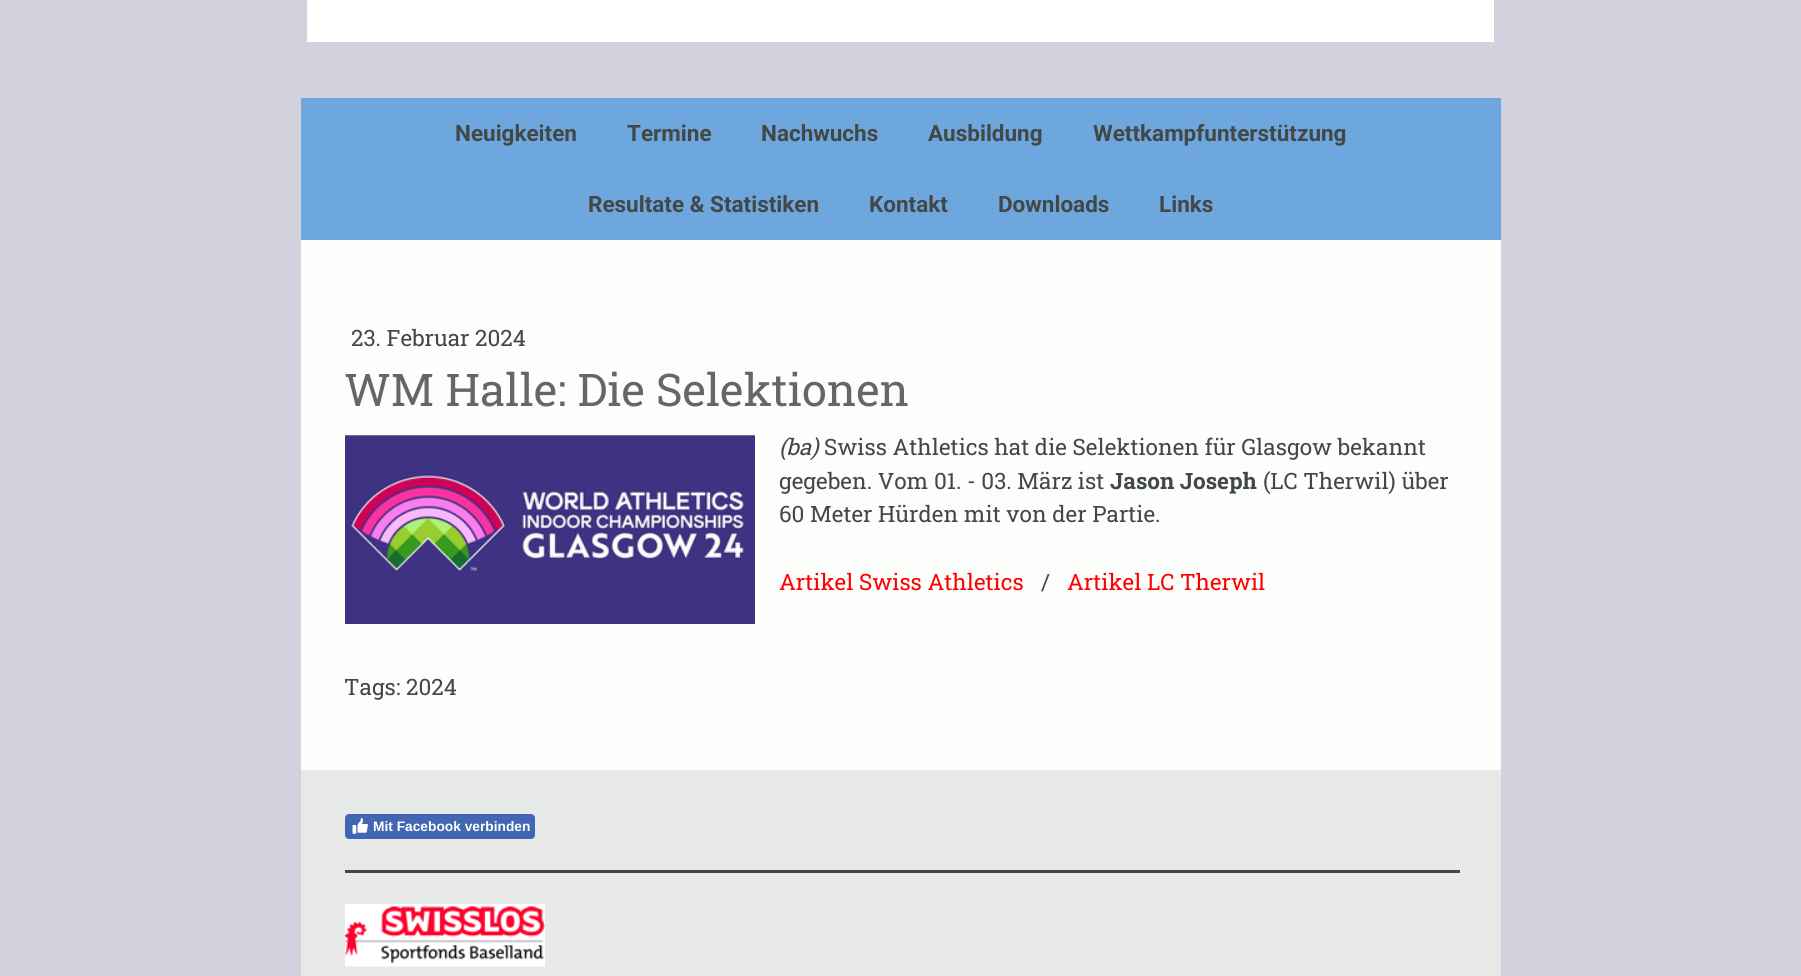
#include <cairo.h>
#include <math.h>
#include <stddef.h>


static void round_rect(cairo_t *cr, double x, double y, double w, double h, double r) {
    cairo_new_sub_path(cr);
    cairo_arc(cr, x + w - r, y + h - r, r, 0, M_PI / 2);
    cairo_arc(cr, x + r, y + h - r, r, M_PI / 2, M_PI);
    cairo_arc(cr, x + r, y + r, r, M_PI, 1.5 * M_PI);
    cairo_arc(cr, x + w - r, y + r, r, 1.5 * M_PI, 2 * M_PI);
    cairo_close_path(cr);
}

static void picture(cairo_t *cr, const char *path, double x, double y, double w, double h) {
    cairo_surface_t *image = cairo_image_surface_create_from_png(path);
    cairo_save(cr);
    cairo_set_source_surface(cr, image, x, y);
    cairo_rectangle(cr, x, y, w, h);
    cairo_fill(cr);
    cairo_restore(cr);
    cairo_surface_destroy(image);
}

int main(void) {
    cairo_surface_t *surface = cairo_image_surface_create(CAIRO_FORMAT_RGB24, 1801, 976);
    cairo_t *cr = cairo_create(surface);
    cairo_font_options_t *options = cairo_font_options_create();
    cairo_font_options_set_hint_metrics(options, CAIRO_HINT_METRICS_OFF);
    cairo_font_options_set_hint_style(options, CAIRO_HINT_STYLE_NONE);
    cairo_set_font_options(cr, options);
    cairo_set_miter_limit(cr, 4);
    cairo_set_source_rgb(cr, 0.82, 0.824, 0.867);
    cairo_paint(cr);
    cairo_set_source_rgb(cr, 1, 1, 1);
    cairo_rectangle(cr, 307, 0, 1187, 42);
    cairo_fill(cr);
    cairo_set_source_rgb(cr, 0.427, 0.655, 0.871);
    cairo_rectangle(cr, 301, 98, 1200, 142);
    cairo_fill(cr);
    cairo_select_font_face(cr, "Roboto", CAIRO_FONT_SLANT_NORMAL, CAIRO_FONT_WEIGHT_BOLD);
    cairo_set_font_size(cr, 22.5);
    cairo_set_source_rgb(cr, 0.263, 0.278, 0.271);
    cairo_move_to(cr, 455, 141);
    cairo_show_text(cr, "Neuigkeiten");
    cairo_move_to(cr, 627, 141);
    cairo_show_text(cr, "Termine");
    cairo_move_to(cr, 761, 141);
    cairo_show_text(cr, "Nachwuchs");
    cairo_move_to(cr, 928, 141);
    cairo_show_text(cr, "Ausbildung");
    cairo_move_to(cr, 1093, 141);
    cairo_show_text(cr, "Wettkampfunterstützung");
    cairo_move_to(cr, 588, 212);
    cairo_show_text(cr, "Resultate & Statistiken");
    cairo_move_to(cr, 869, 212);
    cairo_show_text(cr, "Kontakt");
    cairo_move_to(cr, 998, 212);
    cairo_show_text(cr, "Downloads");
    cairo_move_to(cr, 1159, 212);
    cairo_show_text(cr, "Links");
    cairo_set_source_rgb(cr, 0.988, 0.996, 0.988);
    cairo_rectangle(cr, 301, 240, 1200, 530);
    cairo_fill(cr);
    cairo_select_font_face(cr, "Roboto Slab", CAIRO_FONT_SLANT_NORMAL, CAIRO_FONT_WEIGHT_NORMAL);
    cairo_set_source_rgb(cr, 0.263, 0.278, 0.271);
    cairo_move_to(cr, 351, 346);
    cairo_show_text(cr, "23. Februar 2024");
    cairo_set_font_size(cr, 45);
    cairo_set_source_rgb(cr, 0.4, 0.4, 0.4);
    cairo_move_to(cr, 344, 406);
    cairo_show_text(cr, "WM Halle: Die Selektionen");
    picture(cr, "img1.png", 345, 435, 410, 189);
    cairo_select_font_face(cr, "Roboto Slab", CAIRO_FONT_SLANT_ITALIC, CAIRO_FONT_WEIGHT_NORMAL);
    cairo_set_font_size(cr, 22.5);
    cairo_set_source_rgb(cr, 0.263, 0.278, 0.271);
    cairo_move_to(cr, 779, 455);
    cairo_show_text(cr, "(ba)");
    cairo_select_font_face(cr, "Roboto Slab", CAIRO_FONT_SLANT_NORMAL, CAIRO_FONT_WEIGHT_NORMAL);
    cairo_move_to(cr, 824, 455);
    cairo_show_text(cr, "Swiss Athletics hat die Selektionen für Glasgow bekannt");
    cairo_move_to(cr, 779, 489);
    cairo_show_text(cr, "gegeben. Vom 01. - 03. März ist");
    cairo_select_font_face(cr, "Roboto Slab", CAIRO_FONT_SLANT_NORMAL, CAIRO_FONT_WEIGHT_BOLD);
    cairo_move_to(cr, 1110, 489);
    cairo_show_text(cr, "Jason Joseph");
    cairo_select_font_face(cr, "Roboto Slab", CAIRO_FONT_SLANT_NORMAL, CAIRO_FONT_WEIGHT_NORMAL);
    cairo_move_to(cr, 1263, 489);
    cairo_show_text(cr, "(LC Therwil) über");
    cairo_move_to(cr, 779, 522);
    cairo_show_text(cr, "60 Meter Hürden mit von der Partie.");
    cairo_set_source_rgb(cr, 1, 0, 0);
    cairo_move_to(cr, 779, 590);
    cairo_show_text(cr, "Artikel Swiss Athletics");
    cairo_set_source_rgb(cr, 0.263, 0.278, 0.271);
    cairo_move_to(cr, 1041, 590);
    cairo_show_text(cr, "/");
    cairo_set_source_rgb(cr, 1, 0, 0);
    cairo_move_to(cr, 1067, 590);
    cairo_show_text(cr, "Artikel LC Therwil");
    cairo_set_source_rgb(cr, 0.263, 0.278, 0.271);
    cairo_move_to(cr, 344, 695);
    cairo_show_text(cr, "Tags: 2024");
    cairo_set_source_rgb(cr, 0.906, 0.914, 0.91);
    cairo_rectangle(cr, 301, 770, 1200, 206);
    cairo_fill(cr);
    cairo_set_source_rgb(cr, 0.259, 0.404, 0.698);
    round_rect(cr, 345.5, 814.5, 189, 24, 3.5);
    cairo_fill_preserve(cr);
    cairo_set_line_width(cr, 1);
    cairo_stroke(cr);
    picture(cr, "img2.png", 352, 818, 17, 16);
    cairo_select_font_face(cr, "Liberation Sans", CAIRO_FONT_SLANT_NORMAL, CAIRO_FONT_WEIGHT_BOLD);
    cairo_set_font_size(cr, 13.75);
    cairo_set_source_rgb(cr, 1, 1, 1);
    cairo_move_to(cr, 373, 831);
    cairo_show_text(cr, "Mit Facebook verbinden");
    cairo_set_source_rgb(cr, 0.263, 0.278, 0.271);
    cairo_rectangle(cr, 345, 870, 1115, 3);
    cairo_fill(cr);
    picture(cr, "img3.png", 345, 904, 200, 63);
    cairo_surface_write_to_png(surface, "page.png");
    cairo_font_options_destroy(options);
    cairo_destroy(cr);
    cairo_surface_destroy(surface);
    return 0;
}
